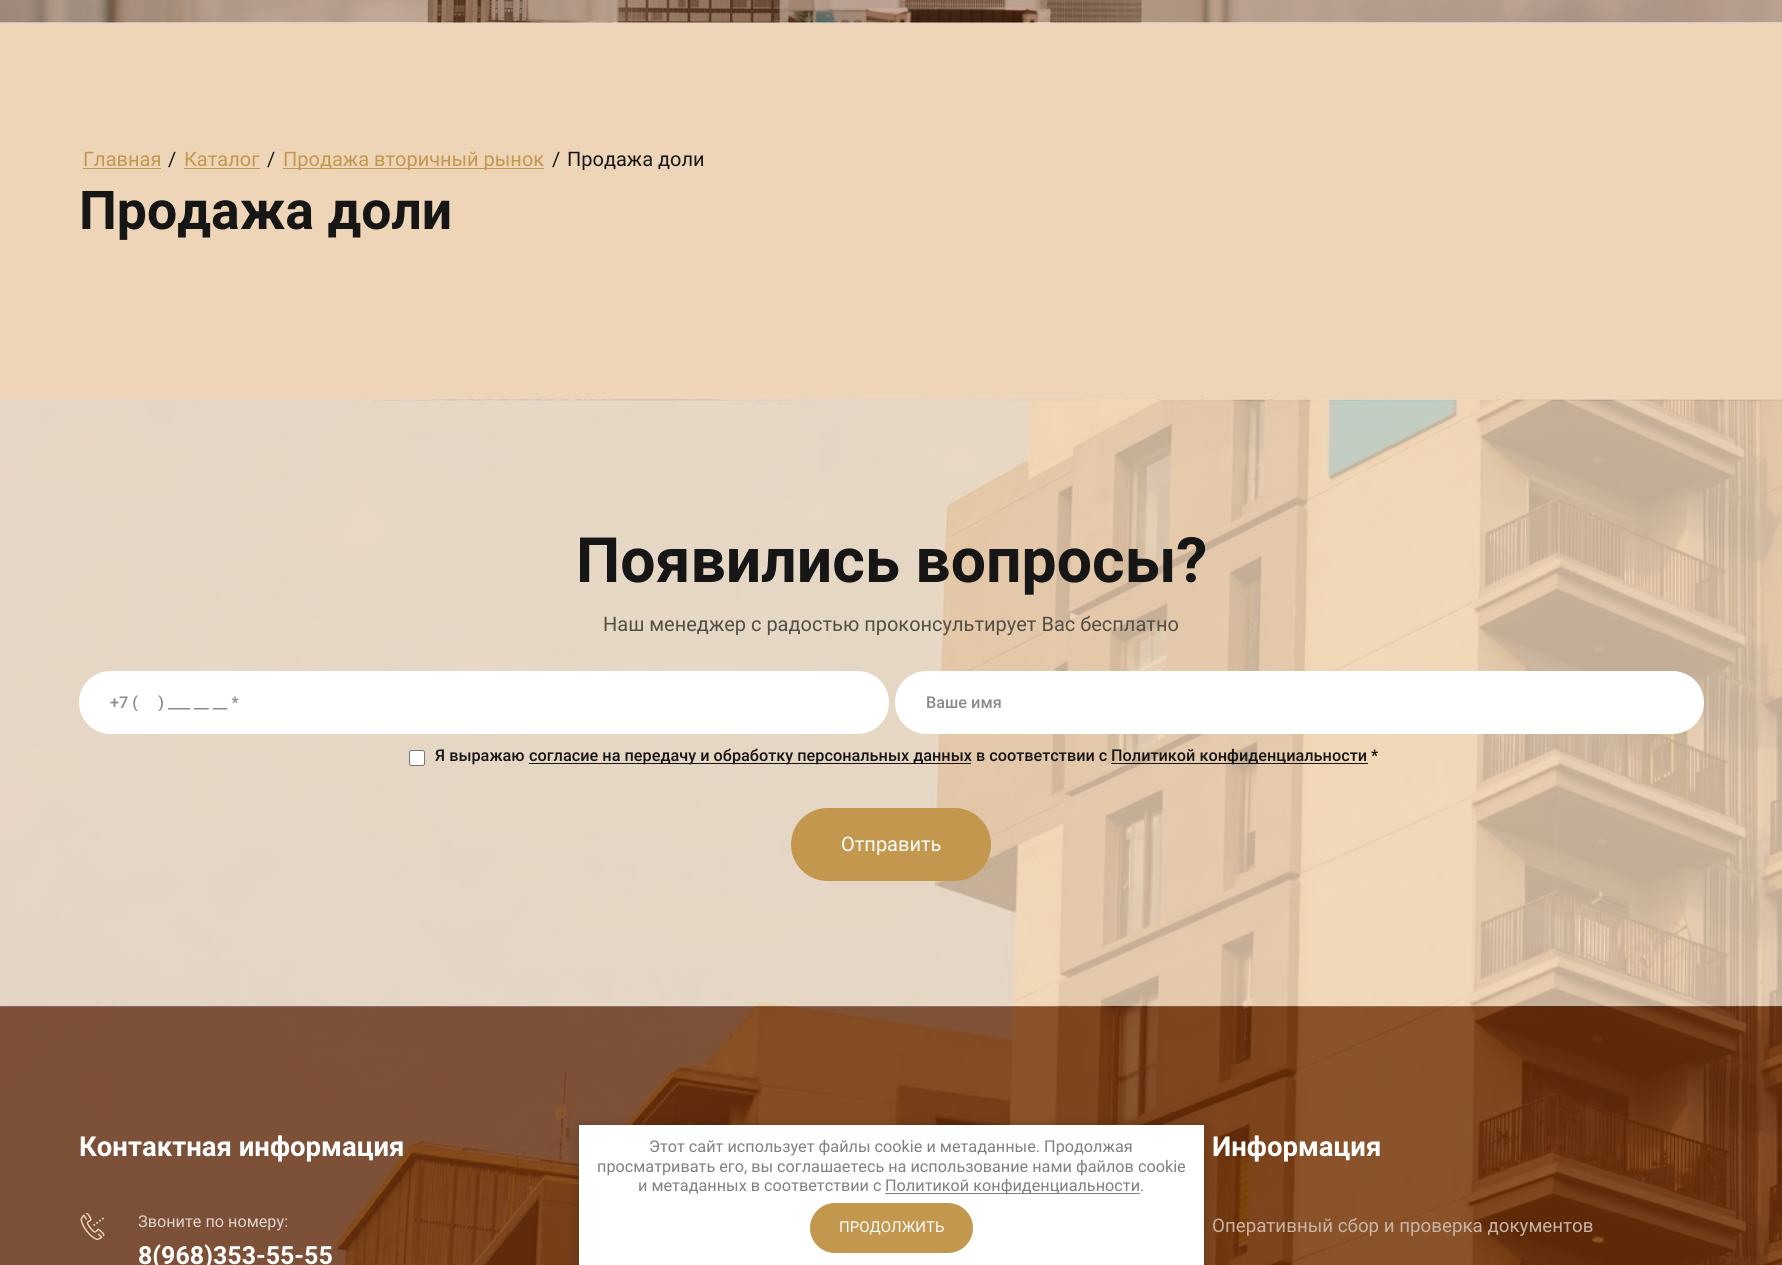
#include <cairo.h>
#include <math.h>
#include <stddef.h>


static void round_rect(cairo_t *cr, double x, double y, double w, double h, double r) {
    cairo_new_sub_path(cr);
    cairo_arc(cr, x + w - r, y + h - r, r, 0, M_PI / 2);
    cairo_arc(cr, x + r, y + h - r, r, M_PI / 2, M_PI);
    cairo_arc(cr, x + r, y + r, r, M_PI, 1.5 * M_PI);
    cairo_arc(cr, x + w - r, y + r, r, 1.5 * M_PI, 2 * M_PI);
    cairo_close_path(cr);
}

static void shadow(cairo_t *cr, double x, double y, double w, double h, double r, double blur, double alpha) {
    cairo_push_group_with_content(cr, CAIRO_CONTENT_ALPHA);
    cairo_set_operator(cr, CAIRO_OPERATOR_SOURCE);
    for (int i = 15; i >= -15 && fmin(w, h) + blur * i / 3 > 0; i -= 2) {
        double e = blur * i / 6;
        cairo_set_source_rgba(cr, 0, 0, 0, alpha * erfc((i - 1) / 8.5) / 2);
        round_rect(cr, x - e, y - e, w + 2 * e, h + 2 * e, fmax(0, fmin(r + e + blur * .6, fmin(w, h) / 2 + e)));
        cairo_fill(cr);
    }
    cairo_pattern_t *soft = cairo_pop_group(cr);
    cairo_mask(cr, soft);
    cairo_pattern_destroy(soft);
}

static void picture(cairo_t *cr, const char *path, double x, double y, double w, double h) {
    cairo_surface_t *image = cairo_image_surface_create_from_png(path);
    cairo_save(cr);
    cairo_set_source_surface(cr, image, x, y);
    cairo_rectangle(cr, x, y, w, h);
    cairo_fill(cr);
    cairo_restore(cr);
    cairo_surface_destroy(image);
}

int main(void) {
    cairo_surface_t *surface = cairo_image_surface_create(CAIRO_FORMAT_RGB24, 1782, 1265);
    cairo_t *cr = cairo_create(surface);
    cairo_font_options_t *options = cairo_font_options_create();
    cairo_font_options_set_hint_metrics(options, CAIRO_HINT_METRICS_OFF);
    cairo_font_options_set_hint_style(options, CAIRO_HINT_STYLE_NONE);
    cairo_set_font_options(cr, options);
    cairo_set_miter_limit(cr, 4);
    cairo_set_source_rgb(cr, 1, 1, 1);
    cairo_paint(cr);
    picture(cr, "img1.png", 0, 0, 1782, 23);
    picture(cr, "img2.png", 0, 23, 1782, 378);
    cairo_select_font_face(cr, "Roboto", CAIRO_FONT_SLANT_NORMAL, CAIRO_FONT_WEIGHT_NORMAL);
    cairo_set_font_size(cr, 20);
    cairo_set_source_rgb(cr, 0.765, 0.592, 0.306);
    cairo_move_to(cr, 83, 166);
    cairo_show_text(cr, "Главная");
    cairo_rectangle(cr, 83, 168, 78, 1);
    cairo_fill(cr);
    cairo_set_source_rgb(cr, 0.086, 0.086, 0.086);
    cairo_move_to(cr, 168, 166);
    cairo_show_text(cr, "/");
    cairo_set_source_rgb(cr, 0.765, 0.592, 0.306);
    cairo_move_to(cr, 184, 166);
    cairo_show_text(cr, "Каталог");
    cairo_rectangle(cr, 184, 168, 76, 1);
    cairo_fill(cr);
    cairo_set_source_rgb(cr, 0.086, 0.086, 0.086);
    cairo_move_to(cr, 267, 166);
    cairo_show_text(cr, "/");
    cairo_set_source_rgb(cr, 0.765, 0.592, 0.306);
    cairo_rectangle(cr, 283, 168, 261, 1);
    cairo_fill(cr);
    cairo_move_to(cr, 283, 166);
    cairo_show_text(cr, "Продажа вторичный рынок");
    cairo_set_source_rgb(cr, 0.086, 0.086, 0.086);
    cairo_move_to(cr, 552, 166);
    cairo_show_text(cr, "/");
    cairo_move_to(cr, 567, 166);
    cairo_show_text(cr, "Продажа доли");
    cairo_select_font_face(cr, "Roboto", CAIRO_FONT_SLANT_NORMAL, CAIRO_FONT_WEIGHT_BOLD);
    cairo_set_font_size(cr, 53.5);
    cairo_move_to(cr, 79, 229);
    cairo_show_text(cr, "Продажа доли");
    picture(cr, "img3.png", 0, 399, 1782, 608);
    cairo_set_font_size(cr, 62.5);
    cairo_move_to(cr, 576, 582);
    cairo_show_text(cr, "Появились вопросы?");
    cairo_select_font_face(cr, "Roboto", CAIRO_FONT_SLANT_NORMAL, CAIRO_FONT_WEIGHT_NORMAL);
    cairo_set_font_size(cr, 20);
    cairo_set_source_rgb(cr, 0.329, 0.306, 0.278);
    cairo_move_to(cr, 603, 631);
    cairo_show_text(cr, "Наш менеджер с радостью проконсультирует Вас бесплатно");
    cairo_set_source_rgb(cr, 1, 1, 1);
    round_rect(cr, 79, 671, 810, 63, 31.5);
    cairo_fill(cr);
    cairo_save(cr);
    cairo_rectangle(cr, 110, 693, 748, 18);
    cairo_clip(cr);
    cairo_select_font_face(cr, "Roboto Medium", CAIRO_FONT_SLANT_NORMAL, CAIRO_FONT_WEIGHT_NORMAL);
    cairo_set_font_size(cr, 16.25);
    cairo_set_source_rgb(cr, 0.545, 0.545, 0.545);
    cairo_move_to(cr, 110, 708);
    cairo_show_text(cr, "+7 (     ) ___ __ __ *");
    cairo_restore(cr);
    round_rect(cr, 895, 671, 809, 63, 31.5);
    cairo_fill(cr);
    cairo_select_font_face(cr, "Roboto Medium", CAIRO_FONT_SLANT_NORMAL, CAIRO_FONT_WEIGHT_NORMAL);
    cairo_set_font_size(cr, 16.25);
    cairo_set_source_rgb(cr, 0.545, 0.545, 0.545);
    cairo_move_to(cr, 926, 708);
    cairo_show_text(cr, "Ваше имя");
    cairo_set_source_rgb(cr, 1, 1, 1);
    round_rect(cr, 409.5, 750.5, 15, 15, 2);
    cairo_fill_preserve(cr);
    cairo_set_source_rgb(cr, 0.463, 0.463, 0.463);
    cairo_set_line_width(cr, 1);
    cairo_stroke(cr);
    cairo_set_source_rgb(cr, 0.086, 0.086, 0.086);
    cairo_move_to(cr, 435, 761);
    cairo_show_text(cr, "Я выражаю");
    cairo_rectangle(cr, 529, 763, 442, 1);
    cairo_fill(cr);
    cairo_move_to(cr, 529, 761);
    cairo_show_text(cr, "согласие на передачу и обработку персональных данных в соответствии с");
    cairo_rectangle(cr, 1111, 763, 257, 1);
    cairo_fill(cr);
    cairo_move_to(cr, 1111, 761);
    cairo_show_text(cr, "Политикой конфиденциальности *");
    cairo_set_source_rgb(cr, 0.765, 0.592, 0.306);
    round_rect(cr, 791, 808, 200, 73, 36.5);
    cairo_fill(cr);
    cairo_select_font_face(cr, "Roboto", CAIRO_FONT_SLANT_NORMAL, CAIRO_FONT_WEIGHT_NORMAL);
    cairo_set_font_size(cr, 20);
    cairo_set_source_rgb(cr, 1, 1, 1);
    cairo_move_to(cr, 841, 851);
    cairo_show_text(cr, "Отправить");
    picture(cr, "img4.png", 0, 1006, 1782, 259);
    cairo_select_font_face(cr, "Roboto", CAIRO_FONT_SLANT_NORMAL, CAIRO_FONT_WEIGHT_BOLD);
    cairo_set_font_size(cr, 27.5);
    cairo_move_to(cr, 79, 1156);
    cairo_show_text(cr, "Контактная информация");
    picture(cr, "img5.png", 80, 1213, 25, 27);
    cairo_select_font_face(cr, "Roboto", CAIRO_FONT_SLANT_NORMAL, CAIRO_FONT_WEIGHT_NORMAL);
    cairo_set_font_size(cr, 16.25);
    cairo_set_source_rgb(cr, 0.871, 0.827, 0.804);
    cairo_move_to(cr, 138, 1227);
    cairo_show_text(cr, "Звоните по номеру:");
    cairo_select_font_face(cr, "Roboto", CAIRO_FONT_SLANT_NORMAL, CAIRO_FONT_WEIGHT_BOLD);
    cairo_set_font_size(cr, 25);
    cairo_set_source_rgb(cr, 1, 1, 1);
    cairo_move_to(cr, 138, 1264);
    cairo_show_text(cr, "8(968)353-55-55");
    cairo_set_font_size(cr, 27.5);
    cairo_move_to(cr, 1212, 1156);
    cairo_show_text(cr, "Информация");
    cairo_select_font_face(cr, "Roboto", CAIRO_FONT_SLANT_NORMAL, CAIRO_FONT_WEIGHT_NORMAL);
    cairo_set_font_size(cr, 18.75);
    cairo_set_source_rgb(cr, 0.788, 0.702, 0.643);
    cairo_move_to(cr, 1212, 1232);
    cairo_show_text(cr, "Оперативный сбор и проверка документов");
    cairo_set_source_rgb(cr, 0, 0, 0);
    shadow(cr, 579, 1126, 625, 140, 0, 6, 0.23);
    cairo_set_source_rgb(cr, 1, 1, 1);
    cairo_rectangle(cr, 579, 1125, 625, 140);
    cairo_fill(cr);
    cairo_set_font_size(cr, 16.25);
    cairo_set_source_rgb(cr, 0.502, 0.502, 0.502);
    cairo_move_to(cr, 649, 1152);
    cairo_show_text(cr, "Этот сайт использует файлы cookie и метаданные. Продолжая");
    cairo_move_to(cr, 597, 1172);
    cairo_show_text(cr, "просматривать его, вы соглашаетесь на использование нами файлов cookie");
    cairo_move_to(cr, 638, 1191);
    cairo_show_text(cr, "и метаданных в соответствии с");
    cairo_rectangle(cr, 885, 1193, 255, 1);
    cairo_fill(cr);
    cairo_move_to(cr, 885, 1191);
    cairo_show_text(cr, "Политикой конфиденциальности.");
    cairo_set_source_rgb(cr, 0.765, 0.592, 0.306);
    round_rect(cr, 810, 1203, 163, 50, 25);
    cairo_fill(cr);
    cairo_set_font_size(cr, 15);
    cairo_set_source_rgb(cr, 1, 1, 1);
    cairo_move_to(cr, 839, 1232);
    cairo_show_text(cr, "ПРОДОЛЖИТЬ");
    cairo_surface_write_to_png(surface, "page.png");
    cairo_font_options_destroy(options);
    cairo_destroy(cr);
    cairo_surface_destroy(surface);
    return 0;
}
